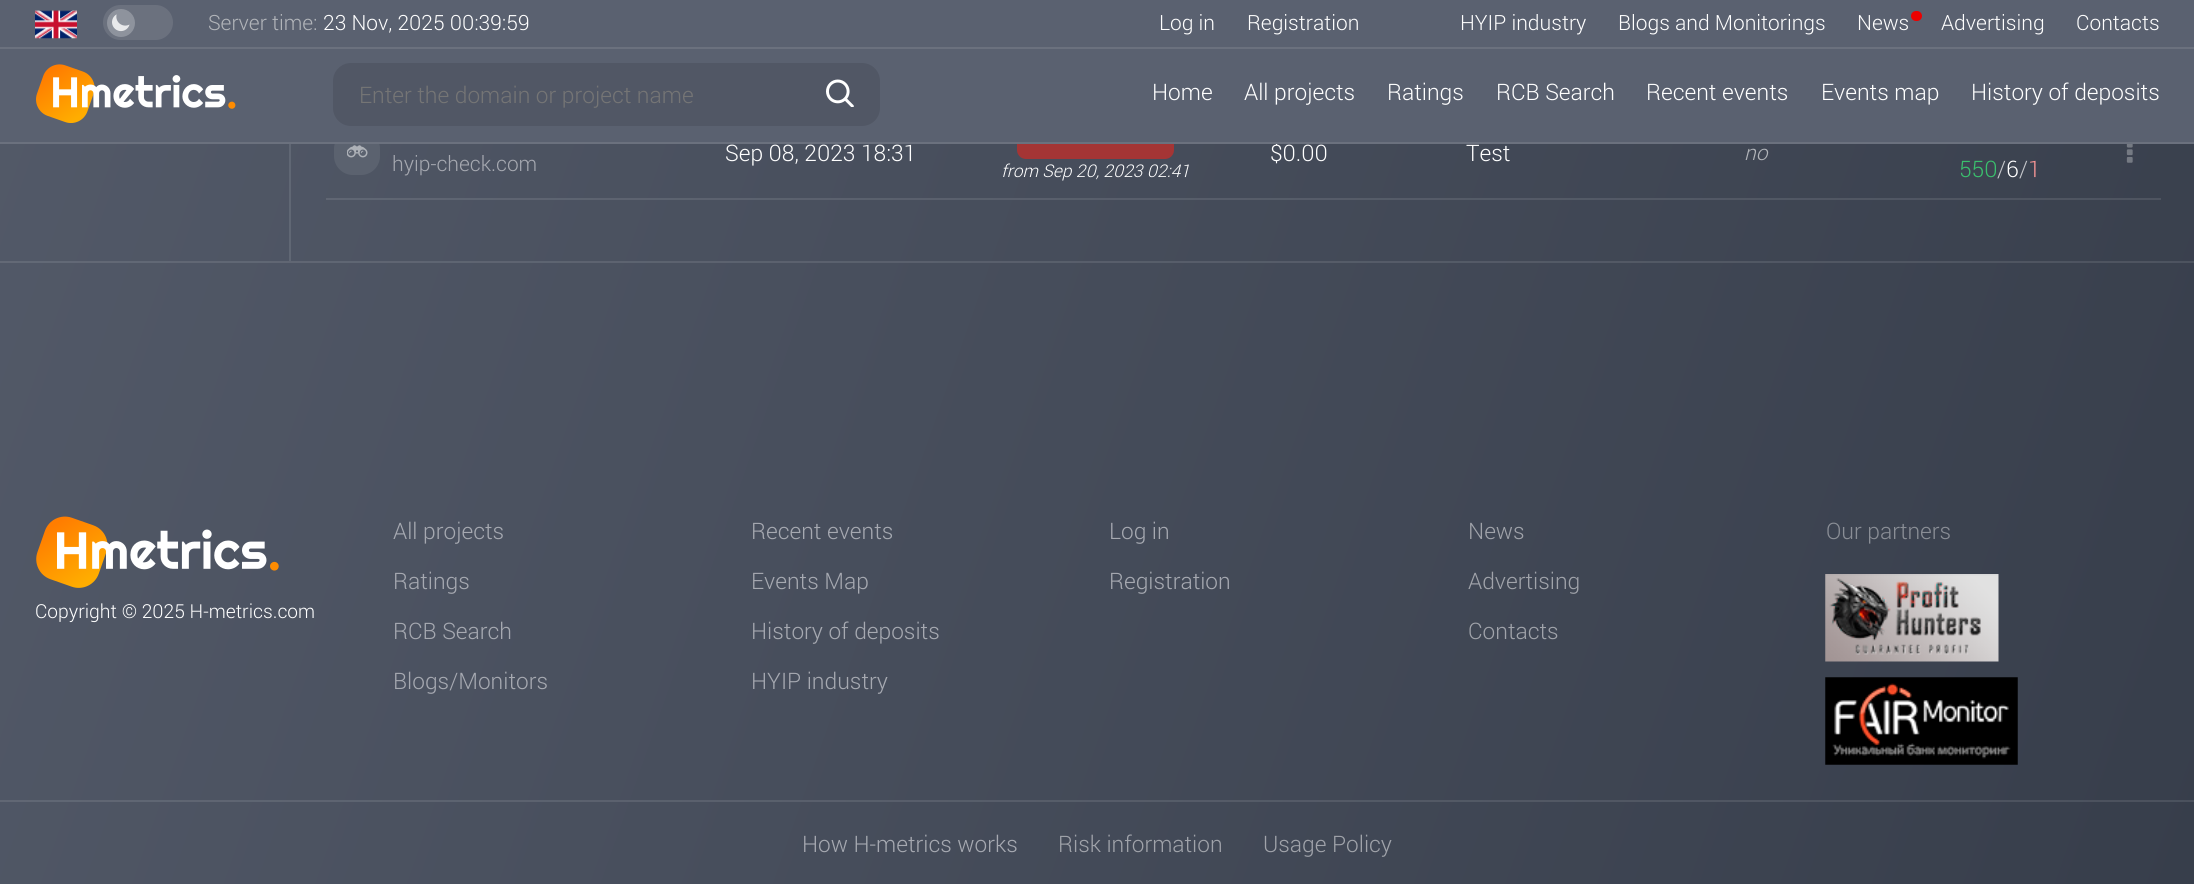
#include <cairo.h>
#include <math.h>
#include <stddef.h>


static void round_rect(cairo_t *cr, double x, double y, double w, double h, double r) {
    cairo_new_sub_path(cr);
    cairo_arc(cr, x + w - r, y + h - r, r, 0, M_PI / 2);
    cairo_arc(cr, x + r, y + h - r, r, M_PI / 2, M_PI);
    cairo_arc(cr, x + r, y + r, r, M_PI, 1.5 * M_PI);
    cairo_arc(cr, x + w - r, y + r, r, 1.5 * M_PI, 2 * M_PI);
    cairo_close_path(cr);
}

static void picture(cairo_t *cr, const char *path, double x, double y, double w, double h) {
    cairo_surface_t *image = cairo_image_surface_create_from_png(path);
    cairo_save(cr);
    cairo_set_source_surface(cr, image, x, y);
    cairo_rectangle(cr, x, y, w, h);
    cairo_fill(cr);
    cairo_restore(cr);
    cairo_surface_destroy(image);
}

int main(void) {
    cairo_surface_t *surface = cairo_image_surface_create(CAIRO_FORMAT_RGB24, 2194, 884);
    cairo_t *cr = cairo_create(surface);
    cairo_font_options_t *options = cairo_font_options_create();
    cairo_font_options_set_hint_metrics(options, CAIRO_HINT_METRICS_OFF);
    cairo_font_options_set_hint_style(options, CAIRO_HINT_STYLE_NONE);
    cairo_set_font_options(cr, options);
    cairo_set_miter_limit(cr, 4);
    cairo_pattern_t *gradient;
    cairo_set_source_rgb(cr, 1, 1, 1);
    cairo_paint(cr);
    gradient = cairo_pattern_create_linear(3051, -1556, -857, -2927);
    cairo_pattern_add_color_stop_rgba(gradient, 0, 0.216, 0.243, 0.294, 1);
    cairo_pattern_add_color_stop_rgba(gradient, 1, 0.404, 0.431, 0.494, 1);
    cairo_set_source(cr, gradient);
    cairo_pattern_destroy(gradient);
    cairo_rectangle(cr, 0, 144, 2194, 740);
    cairo_fill(cr);
    gradient = cairo_pattern_create_linear(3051, -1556, -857, -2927);
    cairo_pattern_add_color_stop_rgba(gradient, 0, 0.294, 0.318, 0.365, 1);
    cairo_pattern_add_color_stop_rgba(gradient, 1, 0.463, 0.49, 0.545, 1);
    cairo_set_source(cr, gradient);
    cairo_pattern_destroy(gradient);
    cairo_rectangle(cr, 326, 198, 1835, 2);
    cairo_fill(cr);
    cairo_rectangle(cr, 0, 800, 2194, 2);
    cairo_fill(cr);
    cairo_rectangle(cr, 0, 261, 2194, 2);
    cairo_fill(cr);
    cairo_set_source_rgb(cr, 0.353, 0.38, 0.439);
    cairo_rectangle(cr, 0, 0, 2194, 47);
    cairo_fill(cr);
    cairo_set_source_rgb(cr, 0.42, 0.443, 0.494);
    cairo_rectangle(cr, 0, 47, 2194, 2);
    cairo_fill(cr);
    picture(cr, "img1.png", 35, 10, 42, 29);
    round_rect(cr, 103, 5, 70, 35, 17.5);
    cairo_fill(cr);
    cairo_set_source_rgb(cr, 0.557, 0.576, 0.616);
    cairo_arc(cr, 121, 23, 14, 0, 2 * M_PI);
    cairo_fill(cr);
    picture(cr, "img2.png", 112, 14, 18, 18);
    cairo_select_font_face(cr, "Roboto Light", CAIRO_FONT_SLANT_NORMAL, CAIRO_FONT_WEIGHT_NORMAL);
    cairo_set_font_size(cr, 21);
    cairo_set_source_rgb(cr, 0.698, 0.71, 0.729);
    cairo_move_to(cr, 208, 30);
    cairo_show_text(cr, "Server time:");
    cairo_set_source_rgb(cr, 1, 1, 1);
    cairo_move_to(cr, 323, 30);
    cairo_show_text(cr, "23 Nov, 2025 00:39:59");
    cairo_move_to(cr, 1159, 30);
    cairo_show_text(cr, "Log in");
    cairo_move_to(cr, 1247, 30);
    cairo_show_text(cr, "Registration");
    cairo_move_to(cr, 1460, 30);
    cairo_show_text(cr, "HYIP industry");
    cairo_move_to(cr, 1618, 30);
    cairo_show_text(cr, "Blogs and Monitorings");
    cairo_move_to(cr, 1857, 30);
    cairo_show_text(cr, "News");
    cairo_set_source_rgb(cr, 0.925, 0, 0);
    round_rect(cr, 1911, 11, 11, 10, 5);
    cairo_fill(cr);
    cairo_set_source_rgb(cr, 1, 1, 1);
    cairo_move_to(cr, 1941, 30);
    cairo_show_text(cr, "Advertising");
    cairo_move_to(cr, 2076, 30);
    cairo_show_text(cr, "Contacts");
    cairo_set_source_rgb(cr, 0.357, 0.384, 0.435);
    round_rect(cr, 334, 130, 46, 45, 19);
    cairo_fill(cr);
    cairo_set_source_rgb(cr, 0.643, 0.208, 0.208);
    round_rect(cr, 1017, 121, 157, 38, 9);
    cairo_fill(cr);
    cairo_set_source_rgb(cr, 0.353, 0.38, 0.439);
    cairo_rectangle(cr, 0, 49, 2194, 93);
    cairo_fill(cr);
    cairo_set_font_size(cr, 22.75);
    cairo_set_source_rgb(cr, 1, 1, 1);
    cairo_move_to(cr, 1270, 161);
    cairo_show_text(cr, "$0.00");
    cairo_set_source_rgb(cr, 0.42, 0.443, 0.494);
    cairo_rectangle(cr, 0, 142, 2194, 2);
    cairo_fill(cr);
    picture(cr, "img3.png", 36, 64, 200, 59);
    cairo_set_source_rgb(cr, 0.318, 0.341, 0.396);
    round_rect(cr, 333, 63, 547, 63, 18);
    cairo_fill(cr);
    cairo_set_source_rgb(cr, 0.459, 0.459, 0.459);
    cairo_move_to(cr, 359, 103);
    cairo_show_text(cr, "Enter the domain or project name");
    picture(cr, "img4.png", 826, 79, 28, 28);
    cairo_set_source_rgb(cr, 1, 1, 1);
    cairo_move_to(cr, 1152, 100);
    cairo_show_text(cr, "Home");
    cairo_move_to(cr, 1244, 100);
    cairo_show_text(cr, "All projects");
    cairo_move_to(cr, 1387, 100);
    cairo_show_text(cr, "Ratings");
    cairo_move_to(cr, 1496, 100);
    cairo_show_text(cr, "RCB Search");
    cairo_move_to(cr, 1646, 100);
    cairo_show_text(cr, "Recent events");
    cairo_move_to(cr, 1821, 100);
    cairo_show_text(cr, "Events map");
    cairo_move_to(cr, 1971, 100);
    cairo_show_text(cr, "History of deposits");
    cairo_set_source_rgb(cr, 0.376, 0.404, 0.455);
    cairo_rectangle(cr, 289, 144, 2, 117);
    cairo_fill(cr);
    picture(cr, "img5.png", 347, 145, 21, 13);
    cairo_set_font_size(cr, 21);
    cairo_set_source_rgb(cr, 0.651, 0.663, 0.694);
    cairo_move_to(cr, 392, 171);
    cairo_show_text(cr, "hyip-check.com");
    cairo_set_font_size(cr, 22.75);
    cairo_set_source_rgb(cr, 1, 1, 1);
    cairo_move_to(cr, 725, 161);
    cairo_show_text(cr, "Sep 08, 2023 18:31");
    cairo_select_font_face(cr, "Roboto Light", CAIRO_FONT_SLANT_ITALIC, CAIRO_FONT_WEIGHT_NORMAL);
    cairo_set_font_size(cr, 17.5);
    cairo_move_to(cr, 1001, 177);
    cairo_show_text(cr, "from Sep 20, 2023 02:41");
    cairo_select_font_face(cr, "Roboto Light", CAIRO_FONT_SLANT_NORMAL, CAIRO_FONT_WEIGHT_NORMAL);
    cairo_set_font_size(cr, 22.75);
    cairo_move_to(cr, 1466, 161);
    cairo_show_text(cr, "Test");
    cairo_select_font_face(cr, "Roboto Light", CAIRO_FONT_SLANT_ITALIC, CAIRO_FONT_WEIGHT_NORMAL);
    cairo_set_font_size(cr, 21);
    cairo_set_source_rgb(cr, 0.698, 0.71, 0.729);
    cairo_move_to(cr, 1744, 160);
    cairo_show_text(cr, "no");
    cairo_select_font_face(cr, "Roboto Light", CAIRO_FONT_SLANT_NORMAL, CAIRO_FONT_WEIGHT_NORMAL);
    cairo_set_font_size(cr, 22.75);
    cairo_set_source_rgb(cr, 0.227, 0.753, 0.427);
    cairo_move_to(cr, 1959, 177);
    cairo_show_text(cr, "550");
    cairo_set_source_rgb(cr, 0.773, 0.78, 0.796);
    cairo_move_to(cr, 1997, 177);
    cairo_show_text(cr, "/");
    cairo_set_source_rgb(cr, 1, 1, 1);
    cairo_move_to(cr, 2006, 177);
    cairo_show_text(cr, "6");
    cairo_set_source_rgb(cr, 0.773, 0.78, 0.796);
    cairo_move_to(cr, 2019, 177);
    cairo_show_text(cr, "/");
    cairo_set_source_rgb(cr, 0.984, 0.592, 0.592);
    cairo_move_to(cr, 2028, 177);
    cairo_show_text(cr, "1");
    picture(cr, "img6.png", 2126, 144, 7, 19);
    cairo_set_source_rgb(cr, 0.651, 0.663, 0.694);
    cairo_move_to(cr, 393, 539);
    cairo_show_text(cr, "All projects");
    cairo_move_to(cr, 393, 589);
    cairo_show_text(cr, "Ratings");
    cairo_move_to(cr, 393, 639);
    cairo_show_text(cr, "RCB Search");
    cairo_move_to(cr, 393, 689);
    cairo_show_text(cr, "Blogs/Monitors");
    cairo_move_to(cr, 751, 539);
    cairo_show_text(cr, "Recent events");
    cairo_move_to(cr, 751, 589);
    cairo_show_text(cr, "Events Map");
    cairo_move_to(cr, 751, 639);
    cairo_show_text(cr, "History of deposits");
    cairo_move_to(cr, 751, 689);
    cairo_show_text(cr, "HYIP industry");
    cairo_move_to(cr, 1109, 539);
    cairo_show_text(cr, "Log in");
    cairo_move_to(cr, 1109, 589);
    cairo_show_text(cr, "Registration");
    cairo_set_source_rgb(cr, 0.627, 0.639, 0.667);
    cairo_move_to(cr, 1468, 539);
    cairo_show_text(cr, "News");
    cairo_move_to(cr, 1468, 589);
    cairo_show_text(cr, "Advertising");
    cairo_move_to(cr, 1468, 639);
    cairo_show_text(cr, "Contacts");
    cairo_set_source_rgb(cr, 0.541, 0.557, 0.588);
    cairo_move_to(cr, 1826, 539);
    cairo_show_text(cr, "Our partners");
    picture(cr, "img7.png", 1825, 574, 174, 88);
    picture(cr, "img8.png", 1825, 677, 193, 88);
    picture(cr, "img9.png", 36, 516, 243, 72);
    cairo_set_font_size(cr, 19.25);
    cairo_set_source_rgb(cr, 1, 1, 1);
    cairo_move_to(cr, 35, 618);
    cairo_show_text(cr, "Copyright © 2025 H-metrics.com");
    cairo_set_font_size(cr, 22.75);
    cairo_set_source_rgb(cr, 0.651, 0.663, 0.694);
    cairo_move_to(cr, 802, 852);
    cairo_show_text(cr, "How H-metrics works");
    cairo_set_source_rgb(cr, 0.627, 0.639, 0.667);
    cairo_move_to(cr, 1058, 852);
    cairo_show_text(cr, "Risk information");
    cairo_move_to(cr, 1263, 852);
    cairo_show_text(cr, "Usage Policy");
    cairo_surface_write_to_png(surface, "page.png");
    cairo_font_options_destroy(options);
    cairo_destroy(cr);
    cairo_surface_destroy(surface);
    return 0;
}
